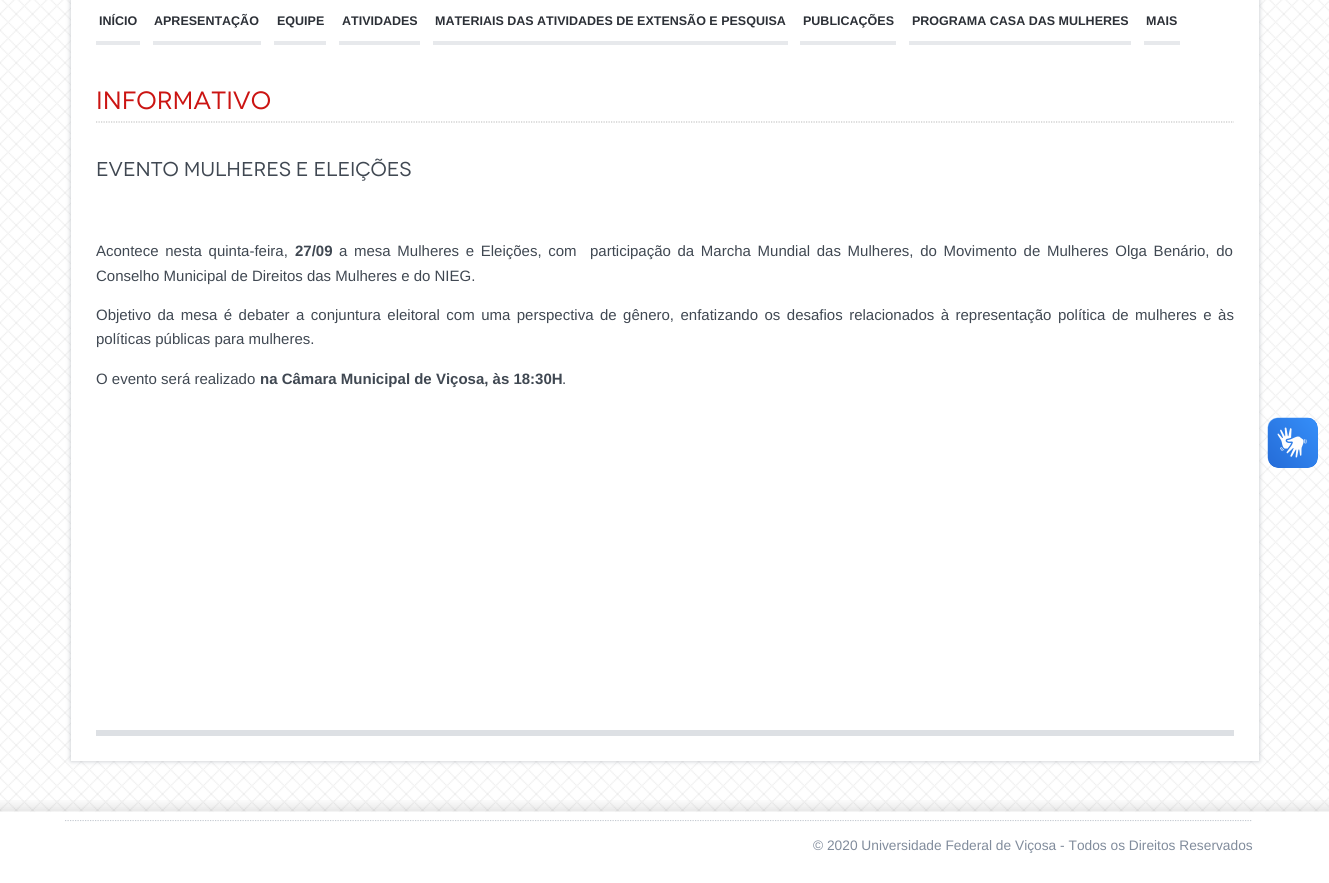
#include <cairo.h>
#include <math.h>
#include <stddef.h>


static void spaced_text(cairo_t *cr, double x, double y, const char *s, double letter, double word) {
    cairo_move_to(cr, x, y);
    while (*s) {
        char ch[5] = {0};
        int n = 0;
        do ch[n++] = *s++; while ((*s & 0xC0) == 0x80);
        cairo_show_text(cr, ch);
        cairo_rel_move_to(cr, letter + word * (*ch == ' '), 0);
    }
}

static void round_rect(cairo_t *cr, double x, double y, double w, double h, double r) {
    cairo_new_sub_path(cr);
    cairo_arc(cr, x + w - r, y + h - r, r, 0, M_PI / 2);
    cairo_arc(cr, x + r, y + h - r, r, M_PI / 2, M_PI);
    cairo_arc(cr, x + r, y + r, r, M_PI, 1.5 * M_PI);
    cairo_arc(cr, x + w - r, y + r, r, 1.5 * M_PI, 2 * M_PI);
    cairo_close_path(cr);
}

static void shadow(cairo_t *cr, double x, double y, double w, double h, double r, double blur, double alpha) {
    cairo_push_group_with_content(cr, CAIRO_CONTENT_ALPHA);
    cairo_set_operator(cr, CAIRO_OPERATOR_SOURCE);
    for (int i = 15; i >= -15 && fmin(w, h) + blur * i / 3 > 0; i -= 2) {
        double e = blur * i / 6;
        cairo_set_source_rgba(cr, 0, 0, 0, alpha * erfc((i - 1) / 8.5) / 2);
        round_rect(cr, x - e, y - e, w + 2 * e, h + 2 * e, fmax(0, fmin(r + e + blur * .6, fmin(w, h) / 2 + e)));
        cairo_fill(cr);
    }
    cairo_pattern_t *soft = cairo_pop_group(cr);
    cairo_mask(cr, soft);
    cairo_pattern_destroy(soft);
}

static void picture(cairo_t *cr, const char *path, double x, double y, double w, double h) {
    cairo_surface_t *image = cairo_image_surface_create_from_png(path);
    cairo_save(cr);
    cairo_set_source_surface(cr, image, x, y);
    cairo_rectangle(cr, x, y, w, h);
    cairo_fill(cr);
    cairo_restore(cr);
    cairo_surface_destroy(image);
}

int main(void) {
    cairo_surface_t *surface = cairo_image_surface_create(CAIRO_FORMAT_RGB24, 1329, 883);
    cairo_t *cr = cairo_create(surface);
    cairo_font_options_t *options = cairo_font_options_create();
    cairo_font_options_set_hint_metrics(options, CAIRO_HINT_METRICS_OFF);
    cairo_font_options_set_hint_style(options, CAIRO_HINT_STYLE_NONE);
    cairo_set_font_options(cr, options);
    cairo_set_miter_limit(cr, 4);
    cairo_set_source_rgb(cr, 1, 1, 1);
    cairo_paint(cr);
    picture(cr, "img1.png", 0, 0, 1329, 813);
    cairo_set_source_rgb(cr, 0.757, 0.769, 0.788);
    shadow(cr, 71, -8, 1188, 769, 0, 2.5, 1);
    cairo_set_source_rgb(cr, 1, 1, 1);
    cairo_rectangle(cr, 71, 0, 1188, 761);
    cairo_fill(cr);
    cairo_set_source_rgb(cr, 0.906, 0.914, 0.925);
    cairo_rectangle(cr, 96, 41, 44, 4);
    cairo_fill(cr);
    cairo_select_font_face(cr, "Liberation Sans", CAIRO_FONT_SLANT_NORMAL, CAIRO_FONT_WEIGHT_BOLD);
    cairo_set_font_size(cr, 12.5);
    cairo_set_source_rgb(cr, 0.173, 0.188, 0.216);
    cairo_move_to(cr, 99, 25);
    cairo_show_text(cr, "INÍCIO");
    cairo_set_source_rgb(cr, 0.906, 0.914, 0.925);
    cairo_rectangle(cr, 153, 41, 108, 4);
    cairo_fill(cr);
    cairo_set_source_rgb(cr, 0.173, 0.188, 0.216);
    cairo_move_to(cr, 154, 25);
    cairo_show_text(cr, "APRESENTAÇÃO");
    cairo_set_source_rgb(cr, 0.906, 0.914, 0.925);
    cairo_rectangle(cr, 274, 41, 52, 4);
    cairo_fill(cr);
    cairo_set_source_rgb(cr, 0.173, 0.188, 0.216);
    cairo_move_to(cr, 277, 25);
    cairo_show_text(cr, "EQUIPE");
    cairo_set_source_rgb(cr, 0.906, 0.914, 0.925);
    cairo_rectangle(cr, 339, 41, 81, 4);
    cairo_fill(cr);
    cairo_set_source_rgb(cr, 0.173, 0.188, 0.216);
    cairo_move_to(cr, 342, 25);
    cairo_show_text(cr, "ATIVIDADES");
    cairo_set_source_rgb(cr, 0.906, 0.914, 0.925);
    cairo_rectangle(cr, 433, 41, 355, 4);
    cairo_fill(cr);
    cairo_set_source_rgb(cr, 0.173, 0.188, 0.216);
    cairo_move_to(cr, 435, 25);
    cairo_show_text(cr, "MATERIAIS DAS ATIVIDADES DE EXTENSÃO E PESQUISA");
    cairo_set_source_rgb(cr, 0.906, 0.914, 0.925);
    cairo_rectangle(cr, 800, 41, 96, 4);
    cairo_fill(cr);
    cairo_set_source_rgb(cr, 0.173, 0.188, 0.216);
    cairo_move_to(cr, 803, 25);
    cairo_show_text(cr, "PUBLICAÇÕES");
    cairo_set_source_rgb(cr, 0.906, 0.914, 0.925);
    cairo_rectangle(cr, 909, 41, 222, 4);
    cairo_fill(cr);
    cairo_set_source_rgb(cr, 0.173, 0.188, 0.216);
    cairo_move_to(cr, 912, 25);
    cairo_show_text(cr, "PROGRAMA CASA DAS MULHERES");
    cairo_set_source_rgb(cr, 0.906, 0.914, 0.925);
    cairo_rectangle(cr, 1144, 41, 36, 4);
    cairo_fill(cr);
    cairo_set_source_rgb(cr, 0.173, 0.188, 0.216);
    cairo_move_to(cr, 1146, 25);
    cairo_show_text(cr, "MAIS");
    cairo_set_source_rgb(cr, 0.867, 0.878, 0.894);
    cairo_rectangle(cr, 96, 730, 1138, 6);
    cairo_fill(cr);
    cairo_new_path(cr);
    cairo_move_to(cr, 96, 122);
    cairo_line_to(cr, 1234, 122);
    cairo_set_source_rgb(cr, 0.776, 0.776, 0.776);
    cairo_set_line_width(cr, 1.2);
    cairo_set_dash(cr, (double[]){1.25, 1.25}, 2, 0);
    cairo_stroke(cr);
    cairo_select_font_face(cr, "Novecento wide", CAIRO_FONT_SLANT_NORMAL, CAIRO_FONT_WEIGHT_NORMAL);
    cairo_set_font_size(cr, 25);
    cairo_set_source_rgb(cr, 0.796, 0.082, 0.071);
    cairo_move_to(cr, 96, 109);
    cairo_show_text(cr, "Informativo");
    cairo_set_font_size(cr, 20);
    cairo_set_source_rgb(cr, 0.251, 0.282, 0.322);
    cairo_move_to(cr, 96, 176);
    cairo_show_text(cr, "Evento Mulheres e Eleições");
    cairo_select_font_face(cr, "Liberation Sans", CAIRO_FONT_SLANT_NORMAL, CAIRO_FONT_WEIGHT_NORMAL);
    cairo_set_font_size(cr, 15);
    spaced_text(cr, 96, 256, "Acontece nesta quinta-feira,", 0, 2.5);
    cairo_select_font_face(cr, "Liberation Sans", CAIRO_FONT_SLANT_NORMAL, CAIRO_FONT_WEIGHT_BOLD);
    cairo_move_to(cr, 295, 256);
    cairo_show_text(cr, "27/09");
    cairo_select_font_face(cr, "Liberation Sans", CAIRO_FONT_SLANT_NORMAL, CAIRO_FONT_WEIGHT_NORMAL);
    spaced_text(cr, 339, 256, "a mesa Mulheres e Eleições, com  participação da Marcha Mundial das Mulheres, do Movimento de Mulheres Olga Benário, do", 0, 2.5);
    cairo_move_to(cr, 96, 281);
    cairo_show_text(cr, "Conselho Municipal de Direitos das Mulheres e do NIEG.");
    spaced_text(cr, 96, 320, "Objetivo da mesa é debater a conjuntura eleitoral com uma perspectiva de gênero, enfatizando os desafios relacionados à representação política de mulheres e às", 0, 2.3);
    cairo_move_to(cr, 96, 344);
    cairo_show_text(cr, "políticas públicas para mulheres.");
    cairo_move_to(cr, 96, 384);
    cairo_show_text(cr, "O evento será realizado");
    cairo_select_font_face(cr, "Liberation Sans", CAIRO_FONT_SLANT_NORMAL, CAIRO_FONT_WEIGHT_BOLD);
    cairo_move_to(cr, 260, 384);
    cairo_show_text(cr, "na Câmara Municipal de Viçosa, às 18:30H");
    cairo_select_font_face(cr, "Liberation Sans", CAIRO_FONT_SLANT_NORMAL, CAIRO_FONT_WEIGHT_NORMAL);
    cairo_move_to(cr, 562, 384);
    cairo_show_text(cr, ".");
    picture(cr, "img2.png", 1267, 417, 51, 51);
    picture(cr, "img3.png", 1268, 418, 50, 50);
    picture(cr, "img4.png", 0, 800, 1329, 20);
    cairo_save(cr);
    cairo_rectangle(cr, 65, 820, 1200, 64);
    cairo_clip(cr);
    cairo_new_path(cr);
    cairo_move_to(cr, 65, 820.5);
    cairo_line_to(cr, 1252.5, 820.5);
    cairo_set_source_rgb(cr, 0.776, 0.796, 0.824);
    cairo_stroke(cr);
    cairo_restore(cr);
    cairo_set_font_size(cr, 13.75);
    cairo_set_source_rgb(cr, 0.506, 0.549, 0.612);
    cairo_move_to(cr, 813, 850);
    cairo_show_text(cr, "© 2020 Universidade Federal de Viçosa - Todos os Direitos Reservados");
    cairo_surface_write_to_png(surface, "page.png");
    cairo_font_options_destroy(options);
    cairo_destroy(cr);
    cairo_surface_destroy(surface);
    return 0;
}
